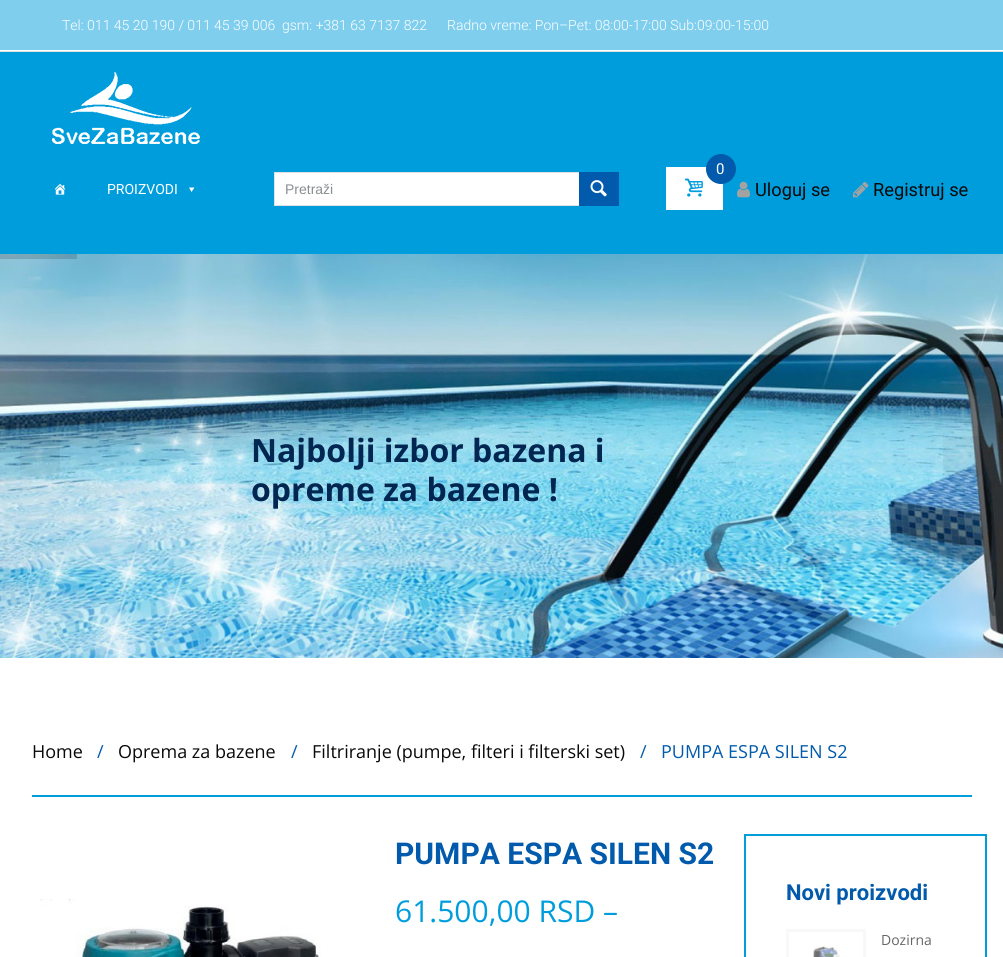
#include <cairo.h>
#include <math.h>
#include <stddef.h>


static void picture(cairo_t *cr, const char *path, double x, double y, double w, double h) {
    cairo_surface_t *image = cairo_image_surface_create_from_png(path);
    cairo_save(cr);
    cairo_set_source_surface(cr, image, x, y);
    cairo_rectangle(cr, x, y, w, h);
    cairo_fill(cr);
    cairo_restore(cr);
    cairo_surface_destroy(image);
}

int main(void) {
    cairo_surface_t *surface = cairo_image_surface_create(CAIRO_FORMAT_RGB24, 1003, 957);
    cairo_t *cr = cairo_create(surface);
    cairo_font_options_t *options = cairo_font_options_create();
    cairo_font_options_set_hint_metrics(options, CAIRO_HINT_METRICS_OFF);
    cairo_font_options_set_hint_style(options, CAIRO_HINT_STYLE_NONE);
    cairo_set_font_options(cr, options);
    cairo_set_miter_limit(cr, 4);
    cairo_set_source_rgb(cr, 1, 1, 1);
    cairo_paint(cr);
    cairo_set_source_rgb(cr, 0, 0.616, 0.867);
    cairo_rectangle(cr, 0, 52, 1003, 202);
    cairo_fill(cr);
    cairo_set_source_rgb(cr, 0.502, 0.808, 0.933);
    cairo_rectangle(cr, 0, 0, 1003, 50);
    cairo_fill(cr);
    cairo_set_source_rgb(cr, 0.882, 0.882, 0.882);
    cairo_rectangle(cr, 0, 51, 1003, 1);
    cairo_fill(cr);
    cairo_select_font_face(cr, "Roboto Light", CAIRO_FONT_SLANT_NORMAL, CAIRO_FONT_WEIGHT_NORMAL);
    cairo_set_font_size(cr, 14);
    cairo_set_source_rgb(cr, 1, 1, 1);
    cairo_move_to(cr, 62, 30);
    cairo_show_text(cr, "Tel: 011 45 20 190 / 011 45 39 006");
    cairo_move_to(cr, 282, 30);
    cairo_show_text(cr, "gsm: +381 63 7137 822");
    cairo_move_to(cr, 447, 30);
    cairo_show_text(cr, "Radno vreme: Pon–Pet: 08:00-17:00 Sub:09:00-15:00");
    picture(cr, "img1.png", 52, 72, 148, 72);
    cairo_rectangle(cr, 666, 167, 57, 43);
    cairo_fill(cr);
    cairo_set_source_rgb(cr, 0.004, 0.353, 0.671);
    cairo_arc(cr, 721, 169, 15, 0, 2 * M_PI);
    cairo_fill(cr);
    cairo_select_font_face(cr, "Roboto", CAIRO_FONT_SLANT_NORMAL, CAIRO_FONT_WEIGHT_NORMAL);
    cairo_set_font_size(cr, 15);
    cairo_set_source_rgb(cr, 1, 1, 1);
    cairo_move_to(cr, 716, 174);
    cairo_show_text(cr, "0");
    picture(cr, "img2.png", 684, 178, 19, 19);
    picture(cr, "img3.png", 54, 183, 12, 12);
    cairo_set_font_size(cr, 14);
    cairo_move_to(cr, 107, 194);
    cairo_show_text(cr, "PROIZVODI");
    cairo_new_path(cr);
    cairo_move_to(cr, 194.5, 187.5);
    cairo_line_to(cr, 191.5, 192);
    cairo_line_to(cr, 189, 187.5);
    cairo_close_path(cr);
    cairo_fill(cr);
    cairo_rectangle(cr, 274.5, 172.5, 305, 33);
    cairo_fill_preserve(cr);
    cairo_set_source_rgb(cr, 0.882, 0.882, 0.882);
    cairo_set_line_width(cr, 1);
    cairo_stroke(cr);
    cairo_select_font_face(cr, "Liberation Sans", CAIRO_FONT_SLANT_NORMAL, CAIRO_FONT_WEIGHT_NORMAL);
    cairo_set_source_rgb(cr, 0.537, 0.557, 0.569);
    cairo_move_to(cr, 285, 194);
    cairo_show_text(cr, "Pretraži");
    cairo_set_source_rgb(cr, 0.004, 0.353, 0.671);
    cairo_rectangle(cr, 579, 172, 40, 34);
    cairo_fill(cr);
    picture(cr, "img4.png", 590, 180, 17, 17);
    picture(cr, "img5.png", 737, 181, 13, 17);
    cairo_select_font_face(cr, "Roboto", CAIRO_FONT_SLANT_NORMAL, CAIRO_FONT_WEIGHT_NORMAL);
    cairo_set_font_size(cr, 18.25);
    cairo_set_source_rgb(cr, 0.039, 0.039, 0.039);
    cairo_move_to(cr, 755, 196);
    cairo_show_text(cr, "Uloguj se");
    picture(cr, "img6.png", 853, 181, 16, 17);
    cairo_move_to(cr, 873, 196);
    cairo_show_text(cr, "Registruj se");
    picture(cr, "img8.png", 0, 254, 1003, 404);
    cairo_set_source_rgba(cr, 0, 0, 0, 0.15);
    cairo_rectangle(cr, 0, 254, 77, 5);
    cairo_fill(cr);
    cairo_set_source_rgba(cr, 0, 0, 0, 0.05);
    cairo_rectangle(cr, 20, 436, 40, 40);
    cairo_fill(cr);
    picture(cr, "img7.png", 33, 449, 10, 14);
    cairo_select_font_face(cr, "Open Sans", CAIRO_FONT_SLANT_NORMAL, CAIRO_FONT_WEIGHT_BOLD);
    cairo_set_font_size(cr, 32);
    cairo_set_source_rgb(cr, 0, 0.149, 0.318);
    cairo_move_to(cr, 251, 462);
    cairo_show_text(cr, "Najbolji izbor bazena i");
    cairo_move_to(cr, 251, 501);
    cairo_show_text(cr, "opreme za bazene !");
    cairo_set_source_rgba(cr, 0, 0, 0, 0.05);
    cairo_rectangle(cr, 943, 436, 40, 40);
    cairo_fill(cr);
    picture(cr, "img9.png", 959, 449, 10, 14);
    cairo_set_source_rgb(cr, 0, 0.616, 0.867);
    cairo_rectangle(cr, 32, 795, 940, 2);
    cairo_fill(cr);
    cairo_select_font_face(cr, "Open Sans", CAIRO_FONT_SLANT_NORMAL, CAIRO_FONT_WEIGHT_NORMAL);
    cairo_set_font_size(cr, 18);
    cairo_set_source_rgb(cr, 0.039, 0.039, 0.039);
    cairo_move_to(cr, 32, 758);
    cairo_show_text(cr, "Home");
    cairo_set_source_rgb(cr, 0.004, 0.353, 0.671);
    cairo_move_to(cr, 97, 758);
    cairo_show_text(cr, "/");
    cairo_set_source_rgb(cr, 0.039, 0.039, 0.039);
    cairo_move_to(cr, 118, 758);
    cairo_show_text(cr, "Oprema za bazene");
    cairo_set_source_rgb(cr, 0.004, 0.353, 0.671);
    cairo_move_to(cr, 291, 758);
    cairo_show_text(cr, "/");
    cairo_set_source_rgb(cr, 0.039, 0.039, 0.039);
    cairo_move_to(cr, 312, 758);
    cairo_show_text(cr, "Filtriranje (pumpe, filteri i filterski set)");
    cairo_set_source_rgb(cr, 0.004, 0.353, 0.671);
    cairo_move_to(cr, 640, 758);
    cairo_show_text(cr, "/");
    cairo_move_to(cr, 661, 758);
    cairo_show_text(cr, "PUMPA ESPA SILEN S2");
    picture(cr, "img10.png", 40, 899, 281, 58);
    cairo_select_font_face(cr, "Roboto", CAIRO_FONT_SLANT_NORMAL, CAIRO_FONT_WEIGHT_BOLD);
    cairo_set_font_size(cr, 30);
    cairo_move_to(cr, 395, 864);
    cairo_show_text(cr, "PUMPA ESPA SILEN S2");
    cairo_select_font_face(cr, "Open Sans", CAIRO_FONT_SLANT_NORMAL, CAIRO_FONT_WEIGHT_NORMAL);
    cairo_set_source_rgb(cr, 0, 0.616, 0.867);
    cairo_move_to(cr, 395, 922);
    cairo_show_text(cr, "61.500,00 RSD –");
    cairo_rectangle(cr, 745, 835, 241, 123);
    cairo_set_line_width(cr, 2);
    cairo_stroke(cr);
    cairo_select_font_face(cr, "Roboto", CAIRO_FONT_SLANT_NORMAL, CAIRO_FONT_WEIGHT_BOLD);
    cairo_set_font_size(cr, 22);
    cairo_set_source_rgb(cr, 0.004, 0.353, 0.671);
    cairo_move_to(cr, 786, 900);
    cairo_show_text(cr, "Novi proizvodi");
    cairo_rectangle(cr, 787.5, 930.5, 77, 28);
    cairo_set_source_rgb(cr, 0.969, 0.969, 0.969);
    cairo_set_line_width(cr, 3);
    cairo_stroke(cr);
    picture(cr, "img11.png", 813, 946, 27, 11);
    cairo_select_font_face(cr, "Open Sans", CAIRO_FONT_SLANT_NORMAL, CAIRO_FONT_WEIGHT_NORMAL);
    cairo_set_font_size(cr, 14);
    cairo_set_source_rgb(cr, 0.392, 0.396, 0.396);
    cairo_move_to(cr, 881, 945);
    cairo_show_text(cr, "Dozirna");
    cairo_surface_write_to_png(surface, "page.png");
    cairo_font_options_destroy(options);
    cairo_destroy(cr);
    cairo_surface_destroy(surface);
    return 0;
}
